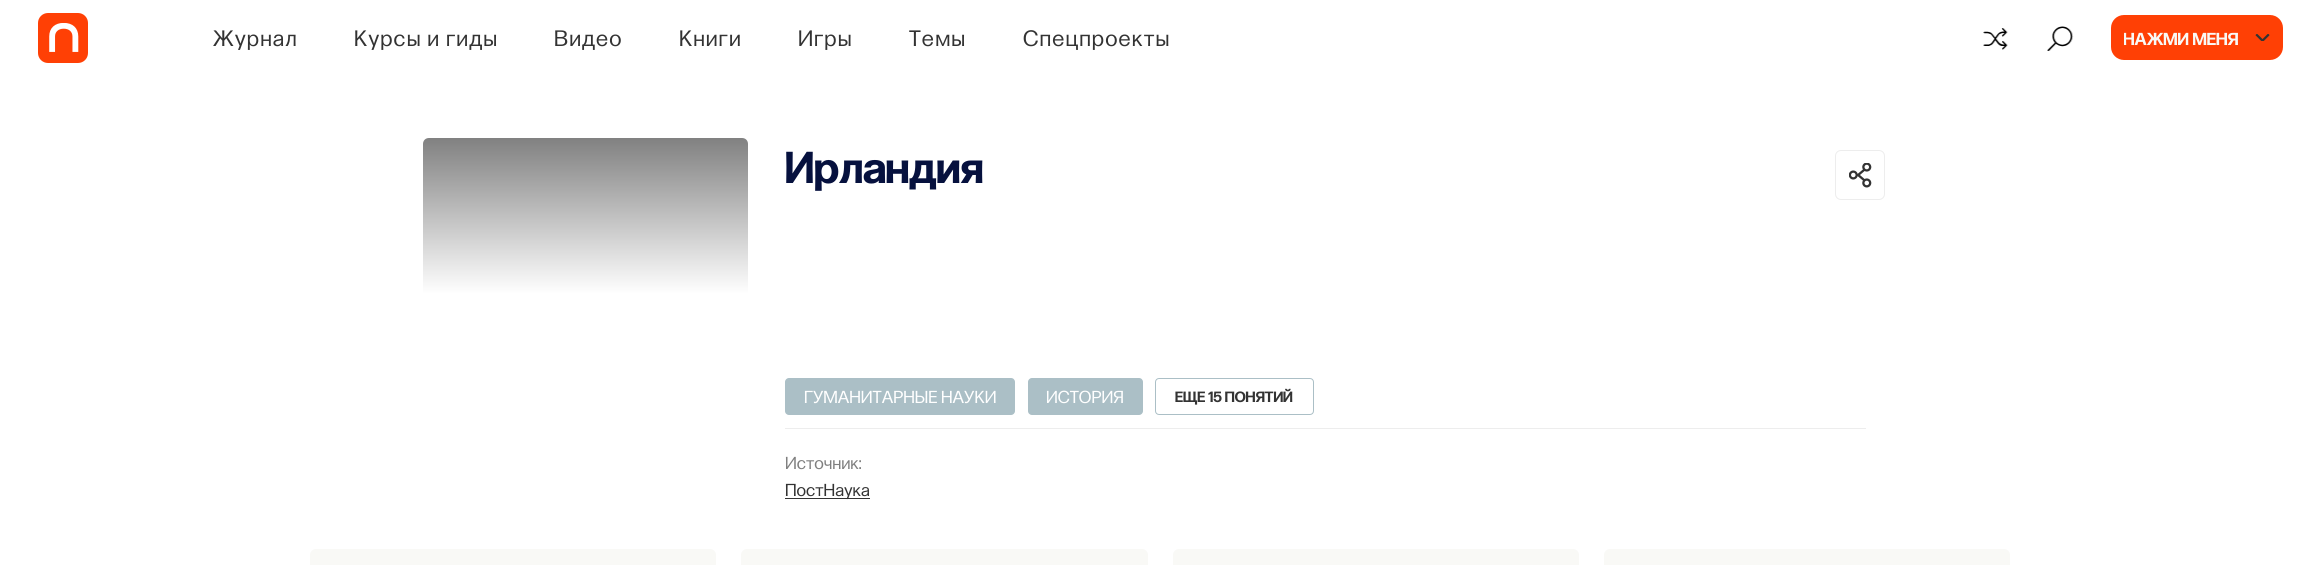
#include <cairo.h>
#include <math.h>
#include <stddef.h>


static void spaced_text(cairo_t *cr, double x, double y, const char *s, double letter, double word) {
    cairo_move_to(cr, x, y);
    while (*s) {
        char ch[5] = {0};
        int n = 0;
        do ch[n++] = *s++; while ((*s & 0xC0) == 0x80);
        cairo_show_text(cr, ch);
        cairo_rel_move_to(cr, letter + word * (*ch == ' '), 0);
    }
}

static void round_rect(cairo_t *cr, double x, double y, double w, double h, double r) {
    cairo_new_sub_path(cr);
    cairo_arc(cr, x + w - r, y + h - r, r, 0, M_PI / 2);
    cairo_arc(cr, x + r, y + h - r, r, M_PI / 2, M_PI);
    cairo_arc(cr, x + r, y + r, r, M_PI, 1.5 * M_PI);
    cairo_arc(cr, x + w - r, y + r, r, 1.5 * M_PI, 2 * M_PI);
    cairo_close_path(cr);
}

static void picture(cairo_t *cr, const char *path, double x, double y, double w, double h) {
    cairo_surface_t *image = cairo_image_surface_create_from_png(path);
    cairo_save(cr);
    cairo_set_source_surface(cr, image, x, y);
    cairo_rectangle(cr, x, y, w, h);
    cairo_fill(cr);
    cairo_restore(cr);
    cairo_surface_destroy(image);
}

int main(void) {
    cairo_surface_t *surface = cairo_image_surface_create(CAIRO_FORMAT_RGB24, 2319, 565);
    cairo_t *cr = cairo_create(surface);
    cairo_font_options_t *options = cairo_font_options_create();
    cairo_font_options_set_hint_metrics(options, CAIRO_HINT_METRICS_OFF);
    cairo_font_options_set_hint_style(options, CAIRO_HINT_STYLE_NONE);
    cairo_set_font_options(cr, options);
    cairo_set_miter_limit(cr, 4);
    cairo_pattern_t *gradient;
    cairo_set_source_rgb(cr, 1, 1, 1);
    cairo_paint(cr);
    cairo_set_source_rgb(cr, 1, 0.251, 0.02);
    round_rect(cr, 38, 13, 50, 50, 10);
    cairo_fill(cr);
    picture(cr, "img1.png", 49, 23, 30, 29);
    cairo_select_font_face(cr, "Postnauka", CAIRO_FONT_SLANT_NORMAL, CAIRO_FONT_WEIGHT_NORMAL);
    cairo_set_font_size(cr, 22.5);
    cairo_set_source_rgb(cr, 0.2, 0.2, 0.2);
    spaced_text(cr, 213, 46, "Журнал", 1.1, 0);
    spaced_text(cr, 354, 46, "Курсы и гиды", 1.1, 0);
    spaced_text(cr, 554, 46, "Видео", 1.1, 0);
    spaced_text(cr, 679, 46, "Книги", 1.1, 0);
    spaced_text(cr, 798, 46, "Игры", 1.1, 0);
    spaced_text(cr, 909, 46, "Темы", 1.1, 0);
    spaced_text(cr, 1023, 46, "Спецпроекты", 1.1, 0);
    picture(cr, "img2.png", 1983, 28, 25, 22);
    picture(cr, "img3.png", 2047, 26, 27, 25);
    cairo_set_source_rgb(cr, 1, 0.251, 0.02);
    round_rect(cr, 2111, 15, 172, 45, 13);
    cairo_fill(cr);
    cairo_save(cr);
    cairo_rectangle(cr, 2124, 26, 115, 23);
    cairo_clip(cr);
    cairo_select_font_face(cr, "Postnauka", CAIRO_FONT_SLANT_NORMAL, CAIRO_FONT_WEIGHT_BOLD);
    cairo_set_font_size(cr, 17.5);
    cairo_set_source_rgb(cr, 0.976, 0.973, 0.961);
    cairo_move_to(cr, 2123, 45);
    cairo_show_text(cr, "НАЖМИ МЕНЯ");
    cairo_restore(cr);
    picture(cr, "img4.png", 2255, 34, 15, 7);
    gradient = cairo_pattern_create_linear(585, 137, 585, 294);
    cairo_pattern_add_color_stop_rgba(gradient, 0, 0.502, 0.502, 0.502, 1);
    cairo_pattern_add_color_stop_rgba(gradient, 1, 1, 1, 1, 1);
    cairo_set_source(cr, gradient);
    cairo_pattern_destroy(gradient);
    cairo_new_path(cr);
    cairo_move_to(cr, 429, 138);
    cairo_line_to(cr, 742, 138);
    cairo_curve_to(cr, 745.5, 138, 748, 140.5, 748, 144);
    cairo_line_to(cr, 748, 294);
    cairo_line_to(cr, 423, 294);
    cairo_line_to(cr, 423, 144);
    cairo_curve_to(cr, 423, 140.5, 425.5, 138, 429, 138);
    cairo_close_path(cr);
    cairo_fill(cr);
    cairo_select_font_face(cr, "Postnauka", CAIRO_FONT_SLANT_NORMAL, CAIRO_FONT_WEIGHT_BOLD);
    cairo_set_font_size(cr, 45);
    cairo_set_source_rgb(cr, 0.027, 0.067, 0.243);
    cairo_move_to(cr, 785, 183);
    cairo_show_text(cr, "Ирландия");
    picture(cr, "img5.png", 1849, 163, 23, 25);
    round_rect(cr, 1835.5, 150.5, 49, 49, 5.5);
    cairo_set_source_rgb(cr, 0.929, 0.929, 0.929);
    cairo_set_line_width(cr, 1);
    cairo_stroke(cr);
    cairo_set_source_rgb(cr, 0.671, 0.749, 0.776);
    round_rect(cr, 785, 378, 230, 37, 4);
    cairo_fill(cr);
    cairo_select_font_face(cr, "Postnauka", CAIRO_FONT_SLANT_NORMAL, CAIRO_FONT_WEIGHT_NORMAL);
    cairo_set_font_size(cr, 17.5);
    cairo_set_source_rgb(cr, 1, 1, 1);
    cairo_move_to(cr, 804, 403);
    cairo_show_text(cr, "ГУМАНИТАРНЫЕ НАУКИ");
    cairo_set_source_rgb(cr, 0.671, 0.749, 0.776);
    round_rect(cr, 1028, 378, 115, 37, 4);
    cairo_fill(cr);
    cairo_set_source_rgb(cr, 1, 1, 1);
    cairo_move_to(cr, 1046, 403);
    cairo_show_text(cr, "ИСТОРИЯ");
    round_rect(cr, 1155.5, 378.5, 158, 36, 3.5);
    cairo_set_source_rgb(cr, 0.671, 0.749, 0.776);
    cairo_stroke(cr);
    cairo_select_font_face(cr, "Postnauka", CAIRO_FONT_SLANT_NORMAL, CAIRO_FONT_WEIGHT_BOLD);
    cairo_set_font_size(cr, 15);
    cairo_set_source_rgb(cr, 0.2, 0.2, 0.2);
    cairo_move_to(cr, 1175, 402);
    cairo_show_text(cr, "ЕЩЕ 15 ПОНЯТИЙ");
    cairo_set_source_rgb(cr, 0.929, 0.929, 0.929);
    cairo_rectangle(cr, 785, 428, 1081, 1);
    cairo_fill(cr);
    cairo_select_font_face(cr, "Postnauka", CAIRO_FONT_SLANT_NORMAL, CAIRO_FONT_WEIGHT_NORMAL);
    cairo_set_font_size(cr, 17.5);
    cairo_set_source_rgb(cr, 0.498, 0.498, 0.498);
    cairo_move_to(cr, 785, 469);
    cairo_show_text(cr, "Источник:");
    cairo_set_source_rgb(cr, 0.2, 0.2, 0.2);
    cairo_rectangle(cr, 785, 498, 85, 1);
    cairo_fill(cr);
    cairo_move_to(cr, 785, 496);
    cairo_show_text(cr, "ПостНаука");
    cairo_set_source_rgb(cr, 0.976, 0.973, 0.961);
    round_rect(cr, 310, 549, 406, 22, 6);
    cairo_fill(cr);
    round_rect(cr, 741, 549, 407, 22, 6);
    cairo_fill(cr);
    round_rect(cr, 1173, 549, 406, 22, 6);
    cairo_fill(cr);
    round_rect(cr, 1604, 549, 406, 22, 6);
    cairo_fill(cr);
    cairo_surface_write_to_png(surface, "page.png");
    cairo_font_options_destroy(options);
    cairo_destroy(cr);
    cairo_surface_destroy(surface);
    return 0;
}
